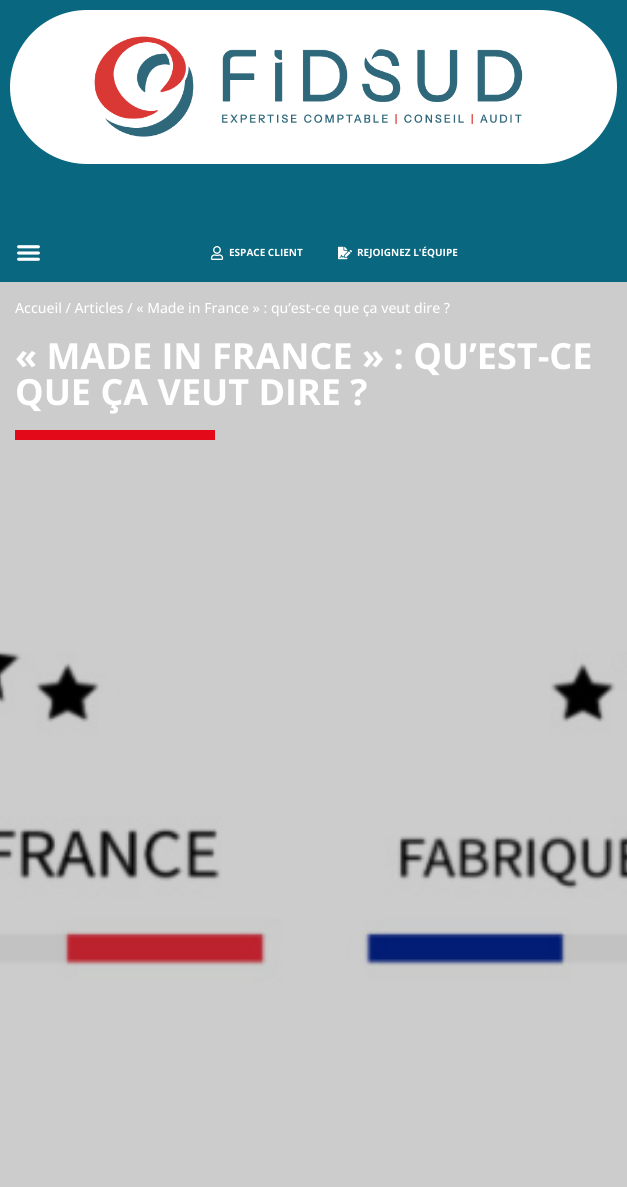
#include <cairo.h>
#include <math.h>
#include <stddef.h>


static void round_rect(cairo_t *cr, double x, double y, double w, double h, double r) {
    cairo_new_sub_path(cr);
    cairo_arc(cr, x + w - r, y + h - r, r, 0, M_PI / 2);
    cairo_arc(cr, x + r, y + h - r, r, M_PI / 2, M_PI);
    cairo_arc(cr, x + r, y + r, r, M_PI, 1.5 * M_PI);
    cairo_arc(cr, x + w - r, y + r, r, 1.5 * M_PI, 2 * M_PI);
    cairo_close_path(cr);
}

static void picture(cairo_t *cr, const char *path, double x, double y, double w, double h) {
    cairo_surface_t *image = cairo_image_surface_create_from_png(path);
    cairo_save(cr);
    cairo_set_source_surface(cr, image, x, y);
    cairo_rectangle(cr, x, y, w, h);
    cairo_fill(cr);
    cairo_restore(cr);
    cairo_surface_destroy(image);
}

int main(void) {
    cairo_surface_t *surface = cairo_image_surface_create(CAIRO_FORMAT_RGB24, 627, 1187);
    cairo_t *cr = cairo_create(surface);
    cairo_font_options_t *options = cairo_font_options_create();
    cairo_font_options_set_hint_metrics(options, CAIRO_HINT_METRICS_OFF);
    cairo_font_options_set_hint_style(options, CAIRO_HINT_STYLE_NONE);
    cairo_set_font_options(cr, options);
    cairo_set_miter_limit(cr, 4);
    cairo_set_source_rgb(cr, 1, 1, 1);
    cairo_paint(cr);
    cairo_set_source_rgb(cr, 0.039, 0.404, 0.498);
    cairo_rectangle(cr, 0, 0, 627, 282);
    cairo_fill(cr);
    cairo_set_source_rgb(cr, 1, 1, 1);
    round_rect(cr, 10, 10, 607, 154, 77);
    cairo_fill(cr);
    picture(cr, "img1.png", 94, 36, 429, 101);
    picture(cr, "img2.png", 17, 245, 23, 16);
    picture(cr, "img3.png", 210, 246, 14, 14);
    cairo_select_font_face(cr, "Open Sans", CAIRO_FONT_SLANT_NORMAL, CAIRO_FONT_WEIGHT_BOLD);
    cairo_set_font_size(cr, 10);
    cairo_move_to(cr, 229, 256);
    cairo_show_text(cr, "ESPACE CLIENT");
    picture(cr, "img4.png", 338, 246, 14, 14);
    cairo_move_to(cr, 357, 256);
    cairo_show_text(cr, "REJOIGNEZ L'ÉQUIPE");
    picture(cr, "img5.png", 0, 282, 627, 905);
    cairo_select_font_face(cr, "Open Sans Medium", CAIRO_FONT_SLANT_NORMAL, CAIRO_FONT_WEIGHT_NORMAL);
    cairo_set_font_size(cr, 14);
    cairo_move_to(cr, 15, 313);
    cairo_show_text(cr, "Accueil / Articles / « Made in France » : qu’est-ce que ça veut dire ?");
    cairo_select_font_face(cr, "Open Sans", CAIRO_FONT_SLANT_NORMAL, CAIRO_FONT_WEIGHT_BOLD);
    cairo_set_font_size(cr, 36);
    cairo_move_to(cr, 15, 369);
    cairo_show_text(cr, "« MADE IN FRANCE » : QU’EST-CE");
    cairo_move_to(cr, 15, 405);
    cairo_show_text(cr, "QUE ÇA VEUT DIRE ?");
    cairo_set_source_rgb(cr, 0.89, 0.039, 0.094);
    cairo_rectangle(cr, 15, 430, 200, 10);
    cairo_fill(cr);
    cairo_surface_write_to_png(surface, "page.png");
    cairo_font_options_destroy(options);
    cairo_destroy(cr);
    cairo_surface_destroy(surface);
    return 0;
}
